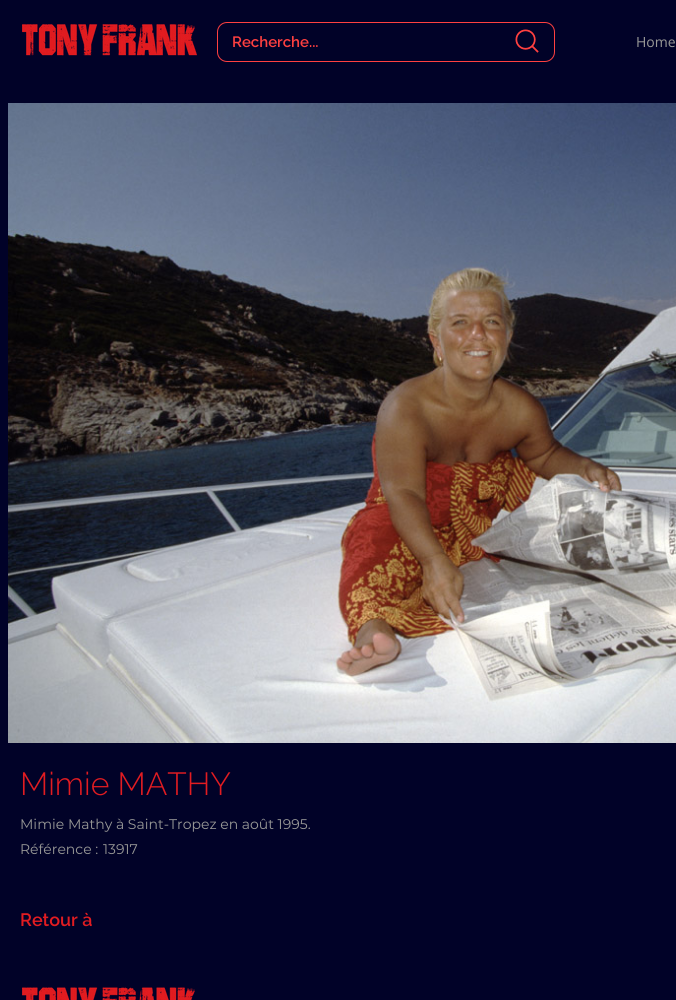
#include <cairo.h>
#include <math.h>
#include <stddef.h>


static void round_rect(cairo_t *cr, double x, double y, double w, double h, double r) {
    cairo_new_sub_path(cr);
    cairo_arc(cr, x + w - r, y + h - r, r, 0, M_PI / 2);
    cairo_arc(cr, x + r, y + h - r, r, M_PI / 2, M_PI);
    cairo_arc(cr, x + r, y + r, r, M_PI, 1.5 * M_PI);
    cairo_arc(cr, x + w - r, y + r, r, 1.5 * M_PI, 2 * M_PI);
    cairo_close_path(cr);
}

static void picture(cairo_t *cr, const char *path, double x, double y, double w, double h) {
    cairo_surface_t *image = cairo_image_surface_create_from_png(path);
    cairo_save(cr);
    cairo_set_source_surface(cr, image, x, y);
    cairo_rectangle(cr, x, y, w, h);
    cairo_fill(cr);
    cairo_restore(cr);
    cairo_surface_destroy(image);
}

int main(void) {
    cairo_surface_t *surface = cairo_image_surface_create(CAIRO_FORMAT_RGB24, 676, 1000);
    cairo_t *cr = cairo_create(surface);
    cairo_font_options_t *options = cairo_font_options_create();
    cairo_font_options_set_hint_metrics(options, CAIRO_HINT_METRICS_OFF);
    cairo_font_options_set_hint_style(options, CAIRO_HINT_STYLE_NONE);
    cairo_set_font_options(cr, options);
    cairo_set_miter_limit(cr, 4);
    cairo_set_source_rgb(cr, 0.004, 0.008, 0.157);
    cairo_paint(cr);
    picture(cr, "img1.png", 22, 24, 175, 32);
    round_rect(cr, 217.5, 22.5, 337, 39, 9.5);
    cairo_set_source_rgb(cr, 1, 0.251, 0.251);
    cairo_set_line_width(cr, 1);
    cairo_stroke(cr);
    cairo_select_font_face(cr, "Raleway SemiBold", CAIRO_FONT_SLANT_NORMAL, CAIRO_FONT_WEIGHT_NORMAL);
    cairo_set_font_size(cr, 15);
    cairo_move_to(cr, 232, 47);
    cairo_show_text(cr, "Recherche...");
    picture(cr, "img2.png", 515, 29, 24, 24);
    cairo_select_font_face(cr, "Open Sans", CAIRO_FONT_SLANT_NORMAL, CAIRO_FONT_WEIGHT_NORMAL);
    cairo_set_font_size(cr, 14);
    cairo_set_source_rgb(cr, 0.6, 0.6, 0.592);
    cairo_move_to(cr, 636, 47);
    cairo_show_text(cr, "Home");
    picture(cr, "img3.png", 8, 103, 668, 640);
    cairo_select_font_face(cr, "Raleway Light", CAIRO_FONT_SLANT_NORMAL, CAIRO_FONT_WEIGHT_NORMAL);
    cairo_set_font_size(cr, 32);
    cairo_set_source_rgb(cr, 0.886, 0.11, 0.129);
    cairo_move_to(cr, 20, 795);
    cairo_show_text(cr, "Mimie MATHY");
    cairo_select_font_face(cr, "Montserrat", CAIRO_FONT_SLANT_NORMAL, CAIRO_FONT_WEIGHT_NORMAL);
    cairo_set_font_size(cr, 14);
    cairo_set_source_rgb(cr, 0.6, 0.6, 0.592);
    cairo_move_to(cr, 20, 829);
    cairo_show_text(cr, "Mimie Mathy à Saint-Tropez en août 1995.");
    cairo_move_to(cr, 20, 854);
    cairo_show_text(cr, "Référence :");
    cairo_move_to(cr, 103, 854);
    cairo_show_text(cr, "13917");
    cairo_select_font_face(cr, "Raleway SemiBold", CAIRO_FONT_SLANT_NORMAL, CAIRO_FONT_WEIGHT_NORMAL);
    cairo_set_font_size(cr, 18);
    cairo_set_source_rgb(cr, 0.886, 0.11, 0.129);
    cairo_move_to(cr, 20, 926);
    cairo_show_text(cr, "Retour à");
    picture(cr, "img4.png", 22, 987, 173, 13);
    cairo_surface_write_to_png(surface, "page.png");
    cairo_font_options_destroy(options);
    cairo_destroy(cr);
    cairo_surface_destroy(surface);
    return 0;
}
